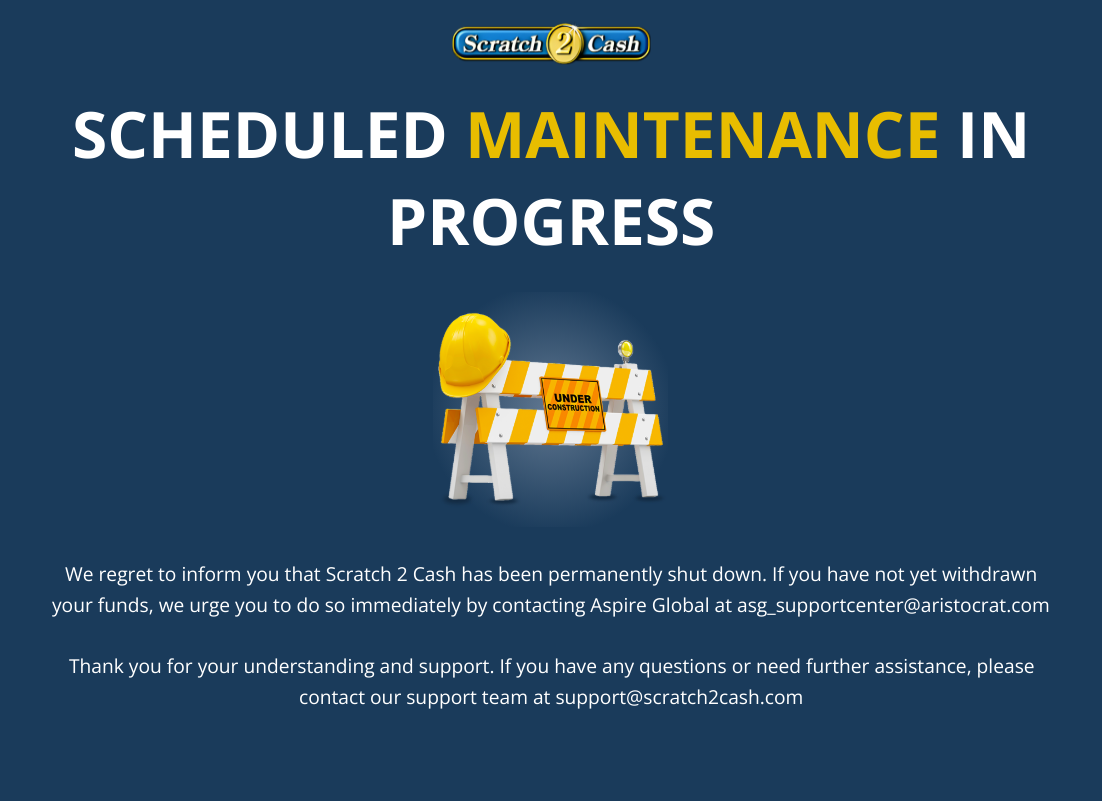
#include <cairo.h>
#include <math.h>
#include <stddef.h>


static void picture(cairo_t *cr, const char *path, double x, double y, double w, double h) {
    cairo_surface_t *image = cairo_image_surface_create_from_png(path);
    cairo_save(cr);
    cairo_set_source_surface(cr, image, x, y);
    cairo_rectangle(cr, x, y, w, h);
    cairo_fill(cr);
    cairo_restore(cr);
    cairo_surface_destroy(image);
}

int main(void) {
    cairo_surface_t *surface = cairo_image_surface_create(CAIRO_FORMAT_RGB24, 1102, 801);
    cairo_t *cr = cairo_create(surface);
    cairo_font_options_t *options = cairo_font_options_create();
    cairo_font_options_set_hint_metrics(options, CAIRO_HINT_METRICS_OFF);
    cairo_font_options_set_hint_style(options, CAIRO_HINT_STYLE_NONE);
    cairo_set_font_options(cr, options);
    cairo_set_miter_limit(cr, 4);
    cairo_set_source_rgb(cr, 0.102, 0.231, 0.357);
    cairo_paint(cr);
    picture(cr, "img1.png", 452, 21, 199, 44);
    cairo_select_font_face(cr, "Open Sans", CAIRO_FONT_SLANT_NORMAL, CAIRO_FONT_WEIGHT_BOLD);
    cairo_set_font_size(cr, 64);
    cairo_set_source_rgb(cr, 1, 1, 1);
    cairo_move_to(cr, 72, 158);
    cairo_show_text(cr, "SCHEDULED");
    cairo_set_source_rgb(cr, 0.91, 0.741, 0);
    cairo_move_to(cr, 465, 158);
    cairo_show_text(cr, "MAINTENANCE");
    cairo_set_source_rgb(cr, 1, 1, 1);
    cairo_move_to(cr, 957, 158);
    cairo_show_text(cr, "IN");
    cairo_move_to(cr, 387, 245);
    cairo_show_text(cr, "PROGRESS");
    picture(cr, "img2.png", 433, 292, 235, 235);
    cairo_select_font_face(cr, "Open Sans", CAIRO_FONT_SLANT_NORMAL, CAIRO_FONT_WEIGHT_NORMAL);
    cairo_set_font_size(cr, 19.2);
    cairo_move_to(cr, 65, 581);
    cairo_show_text(cr, "We regret to inform you that Scratch 2 Cash has been permanently shut down. If you have not yet withdrawn");
    cairo_move_to(cr, 52, 612);
    cairo_show_text(cr, "your funds, we urge you to do so immediately by contacting Aspire Global at asg_supportcenter@aristocrat.com");
    cairo_move_to(cr, 69, 673);
    cairo_show_text(cr, "Thank you for your understanding and support. If you have any questions or need further assistance, please");
    cairo_move_to(cr, 299, 704);
    cairo_show_text(cr, "contact our support team at support@scratch2cash.com");
    cairo_surface_write_to_png(surface, "page.png");
    cairo_font_options_destroy(options);
    cairo_destroy(cr);
    cairo_surface_destroy(surface);
    return 0;
}
